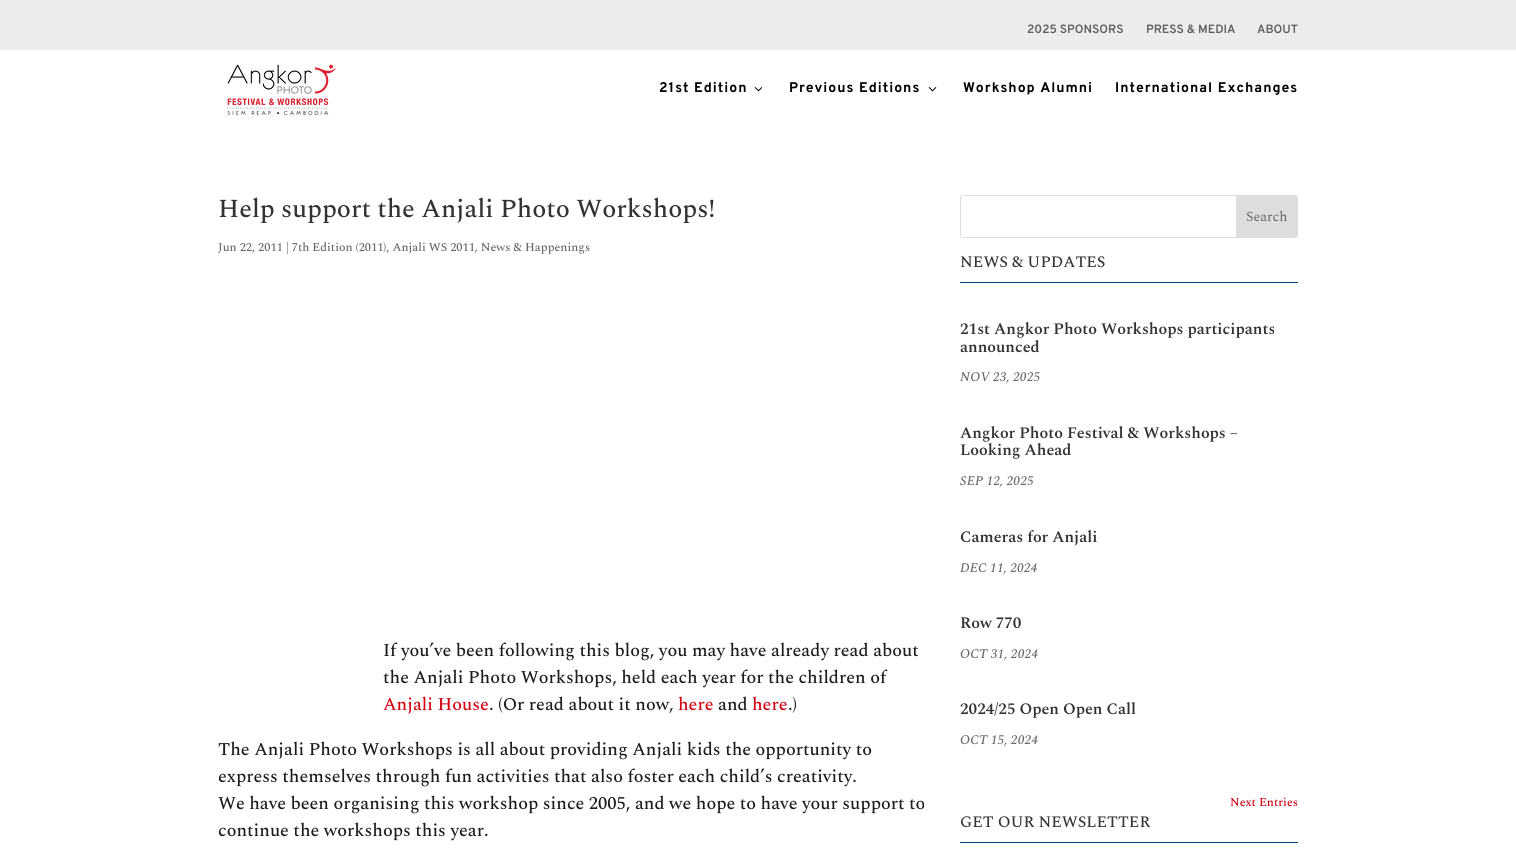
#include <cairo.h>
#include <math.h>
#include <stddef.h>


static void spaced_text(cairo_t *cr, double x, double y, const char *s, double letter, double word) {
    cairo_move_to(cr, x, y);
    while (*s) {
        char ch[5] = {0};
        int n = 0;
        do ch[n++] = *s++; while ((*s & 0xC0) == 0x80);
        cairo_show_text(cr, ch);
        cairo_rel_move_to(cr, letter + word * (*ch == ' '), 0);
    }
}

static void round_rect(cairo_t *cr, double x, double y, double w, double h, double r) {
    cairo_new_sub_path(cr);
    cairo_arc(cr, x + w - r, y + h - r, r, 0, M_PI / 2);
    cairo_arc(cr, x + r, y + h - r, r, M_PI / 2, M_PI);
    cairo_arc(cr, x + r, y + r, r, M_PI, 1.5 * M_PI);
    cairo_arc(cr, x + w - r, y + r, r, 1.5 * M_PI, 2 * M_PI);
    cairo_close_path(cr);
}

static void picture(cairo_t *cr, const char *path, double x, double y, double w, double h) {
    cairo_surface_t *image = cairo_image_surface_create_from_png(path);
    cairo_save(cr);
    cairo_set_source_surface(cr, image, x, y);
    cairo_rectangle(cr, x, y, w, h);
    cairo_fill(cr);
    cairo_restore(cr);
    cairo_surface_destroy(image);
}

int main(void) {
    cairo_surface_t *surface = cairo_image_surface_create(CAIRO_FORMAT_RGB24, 1516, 862);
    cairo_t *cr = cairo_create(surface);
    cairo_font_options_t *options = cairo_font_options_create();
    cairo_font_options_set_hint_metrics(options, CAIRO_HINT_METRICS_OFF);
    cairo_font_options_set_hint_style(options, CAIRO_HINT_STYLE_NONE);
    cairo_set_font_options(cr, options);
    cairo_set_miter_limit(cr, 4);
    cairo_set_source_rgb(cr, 1, 1, 1);
    cairo_paint(cr);
    cairo_set_source_rgb(cr, 0.925, 0.925, 0.925);
    cairo_rectangle(cr, 0, 0, 1516, 50);
    cairo_fill(cr);
    cairo_select_font_face(cr, "Overpass SemiBold", CAIRO_FONT_SLANT_NORMAL, CAIRO_FONT_WEIGHT_NORMAL);
    cairo_set_font_size(cr, 12);
    cairo_set_source_rgb(cr, 0.369, 0.369, 0.369);
    cairo_move_to(cr, 1027, 33);
    cairo_show_text(cr, "2025 SPONSORS");
    cairo_move_to(cr, 1146, 33);
    cairo_show_text(cr, "PRESS & MEDIA");
    cairo_move_to(cr, 1257, 33);
    cairo_show_text(cr, "ABOUT");
    picture(cr, "img1.png", 227, 64, 110, 52);
    cairo_select_font_face(cr, "Overpass", CAIRO_FONT_SLANT_NORMAL, CAIRO_FONT_WEIGHT_BOLD);
    cairo_set_font_size(cr, 14);
    cairo_set_source_rgb(cr, 0, 0, 0);
    spaced_text(cr, 659, 92, "21st Edition", 1, 0);
    picture(cr, "img2.png", 754, 87, 9, 5);
    spaced_text(cr, 789, 92, "Previous Editions", 1, 0);
    picture(cr, "img2.png", 928, 87, 9, 5);
    spaced_text(cr, 963, 92, "Workshop Alumni", 1, 0);
    spaced_text(cr, 1115, 92, "International Exchanges", 1, 0);
    cairo_select_font_face(cr, "Spectral Medium", CAIRO_FONT_SLANT_NORMAL, CAIRO_FONT_WEIGHT_NORMAL);
    cairo_set_font_size(cr, 26);
    cairo_set_source_rgb(cr, 0.2, 0.2, 0.2);
    cairo_move_to(cr, 218, 217);
    cairo_show_text(cr, "Help support the Anjali Photo Workshops!");
    cairo_set_font_size(cr, 12);
    cairo_set_source_rgb(cr, 0.4, 0.4, 0.4);
    cairo_move_to(cr, 218, 251);
    cairo_show_text(cr, "Jun 22, 2011 | 7th Edition (2011), Anjali WS 2011, News & Happenings");
    cairo_set_font_size(cr, 18);
    cairo_set_source_rgb(cr, 0.11, 0.11, 0.11);
    cairo_move_to(cr, 383, 656);
    cairo_show_text(cr, "If you’ve been following this blog, you may have already read about");
    cairo_move_to(cr, 383, 683);
    cairo_show_text(cr, "the Anjali Photo Workshops, held each year for the children of");
    cairo_set_source_rgb(cr, 0.827, 0, 0.067);
    cairo_move_to(cr, 383, 710);
    cairo_show_text(cr, "Anjali House");
    cairo_set_source_rgb(cr, 0.11, 0.11, 0.11);
    cairo_move_to(cr, 489, 710);
    cairo_show_text(cr, ". (Or read about it now,");
    cairo_set_source_rgb(cr, 0.827, 0, 0.067);
    cairo_move_to(cr, 678, 710);
    cairo_show_text(cr, "here");
    cairo_set_source_rgb(cr, 0.11, 0.11, 0.11);
    cairo_move_to(cr, 718, 710);
    cairo_show_text(cr, "and");
    cairo_set_source_rgb(cr, 0.827, 0, 0.067);
    cairo_move_to(cr, 752, 710);
    cairo_show_text(cr, "here");
    cairo_set_source_rgb(cr, 0.11, 0.11, 0.11);
    cairo_move_to(cr, 788, 710);
    cairo_show_text(cr, ".)");
    cairo_move_to(cr, 218, 755);
    cairo_show_text(cr, "The Anjali Photo Workshops is all about providing Anjali kids the opportunity to");
    cairo_move_to(cr, 218, 782);
    cairo_show_text(cr, "express themselves through fun activities that also foster each child’s creativity.");
    cairo_move_to(cr, 218, 809);
    cairo_show_text(cr, "We have been organising this workshop since 2005, and we hope to have your support to");
    cairo_move_to(cr, 218, 836);
    cairo_show_text(cr, "continue the workshops this year.");
    round_rect(cr, 960.5, 195.5, 337, 42, 2.5);
    cairo_set_source_rgb(cr, 0.867, 0.867, 0.867);
    cairo_set_line_width(cr, 1);
    cairo_stroke(cr);
    cairo_new_path(cr);
    cairo_move_to(cr, 1236, 196);
    cairo_line_to(cr, 1295, 196);
    cairo_curve_to(cr, 1296, 196, 1297, 197, 1297, 198);
    cairo_line_to(cr, 1297, 235);
    cairo_curve_to(cr, 1297, 236, 1296, 237, 1295, 237);
    cairo_line_to(cr, 1236, 237);
    cairo_close_path(cr);
    cairo_fill(cr);
    cairo_select_font_face(cr, "Spectral", CAIRO_FONT_SLANT_NORMAL, CAIRO_FONT_WEIGHT_NORMAL);
    cairo_set_font_size(cr, 14);
    cairo_set_source_rgb(cr, 0.4, 0.4, 0.4);
    cairo_move_to(cr, 1246, 221);
    cairo_show_text(cr, "Search");
    cairo_select_font_face(cr, "Spectral Medium", CAIRO_FONT_SLANT_NORMAL, CAIRO_FONT_WEIGHT_NORMAL);
    cairo_set_font_size(cr, 16);
    cairo_set_source_rgb(cr, 0.2, 0.2, 0.2);
    cairo_move_to(cr, 960, 267);
    cairo_show_text(cr, "NEWS & UPDATES");
    cairo_set_source_rgb(cr, 0, 0.275, 0.502);
    cairo_rectangle(cr, 960, 282, 338, 1);
    cairo_fill(cr);
    cairo_select_font_face(cr, "Spectral SemiBold", CAIRO_FONT_SLANT_NORMAL, CAIRO_FONT_WEIGHT_NORMAL);
    cairo_set_source_rgb(cr, 0.2, 0.2, 0.2);
    cairo_move_to(cr, 960, 334);
    cairo_show_text(cr, "21st Angkor Photo Workshops participants");
    cairo_move_to(cr, 960, 352);
    cairo_show_text(cr, "announced");
    cairo_select_font_face(cr, "Spectral Medium", CAIRO_FONT_SLANT_ITALIC, CAIRO_FONT_WEIGHT_NORMAL);
    cairo_set_font_size(cr, 13.25);
    cairo_set_source_rgb(cr, 0.4, 0.4, 0.4);
    cairo_move_to(cr, 960, 381);
    cairo_show_text(cr, "NOV 23, 2025");
    cairo_select_font_face(cr, "Spectral SemiBold", CAIRO_FONT_SLANT_NORMAL, CAIRO_FONT_WEIGHT_NORMAL);
    cairo_set_font_size(cr, 16);
    cairo_set_source_rgb(cr, 0.2, 0.2, 0.2);
    cairo_move_to(cr, 960, 438);
    cairo_show_text(cr, "Angkor Photo Festival & Workshops –");
    cairo_move_to(cr, 960, 455);
    cairo_show_text(cr, "Looking Ahead");
    cairo_select_font_face(cr, "Spectral Medium", CAIRO_FONT_SLANT_ITALIC, CAIRO_FONT_WEIGHT_NORMAL);
    cairo_set_font_size(cr, 13.25);
    cairo_set_source_rgb(cr, 0.4, 0.4, 0.4);
    cairo_move_to(cr, 960, 485);
    cairo_show_text(cr, "SEP 12, 2025");
    cairo_select_font_face(cr, "Spectral SemiBold", CAIRO_FONT_SLANT_NORMAL, CAIRO_FONT_WEIGHT_NORMAL);
    cairo_set_font_size(cr, 16);
    cairo_set_source_rgb(cr, 0.2, 0.2, 0.2);
    cairo_move_to(cr, 960, 542);
    cairo_show_text(cr, "Cameras for Anjali");
    cairo_select_font_face(cr, "Spectral Medium", CAIRO_FONT_SLANT_ITALIC, CAIRO_FONT_WEIGHT_NORMAL);
    cairo_set_font_size(cr, 13.25);
    cairo_set_source_rgb(cr, 0.4, 0.4, 0.4);
    cairo_move_to(cr, 960, 572);
    cairo_show_text(cr, "DEC 11, 2024");
    cairo_select_font_face(cr, "Spectral SemiBold", CAIRO_FONT_SLANT_NORMAL, CAIRO_FONT_WEIGHT_NORMAL);
    cairo_set_font_size(cr, 16);
    cairo_set_source_rgb(cr, 0.2, 0.2, 0.2);
    cairo_move_to(cr, 960, 628);
    cairo_show_text(cr, "Row 770");
    cairo_select_font_face(cr, "Spectral Medium", CAIRO_FONT_SLANT_ITALIC, CAIRO_FONT_WEIGHT_NORMAL);
    cairo_set_font_size(cr, 13.25);
    cairo_set_source_rgb(cr, 0.4, 0.4, 0.4);
    cairo_move_to(cr, 960, 658);
    cairo_show_text(cr, "OCT 31, 2024");
    cairo_select_font_face(cr, "Spectral SemiBold", CAIRO_FONT_SLANT_NORMAL, CAIRO_FONT_WEIGHT_NORMAL);
    cairo_set_font_size(cr, 16);
    cairo_set_source_rgb(cr, 0.2, 0.2, 0.2);
    cairo_move_to(cr, 960, 714);
    cairo_show_text(cr, "2024/25 Open Open Call");
    cairo_select_font_face(cr, "Spectral Medium", CAIRO_FONT_SLANT_ITALIC, CAIRO_FONT_WEIGHT_NORMAL);
    cairo_set_font_size(cr, 13.25);
    cairo_set_source_rgb(cr, 0.4, 0.4, 0.4);
    cairo_move_to(cr, 960, 744);
    cairo_show_text(cr, "OCT 15, 2024");
    cairo_select_font_face(cr, "Spectral Medium", CAIRO_FONT_SLANT_NORMAL, CAIRO_FONT_WEIGHT_NORMAL);
    cairo_set_font_size(cr, 12);
    cairo_set_source_rgb(cr, 0.827, 0, 0.067);
    cairo_move_to(cr, 1230, 806);
    cairo_show_text(cr, "Next Entries");
    cairo_set_font_size(cr, 16);
    cairo_set_source_rgb(cr, 0.2, 0.2, 0.2);
    cairo_move_to(cr, 960, 827);
    cairo_show_text(cr, "GET OUR NEWSLETTER");
    cairo_set_source_rgb(cr, 0, 0.275, 0.502);
    cairo_rectangle(cr, 960, 842, 338, 1);
    cairo_fill(cr);
    cairo_surface_write_to_png(surface, "page.png");
    cairo_font_options_destroy(options);
    cairo_destroy(cr);
    cairo_surface_destroy(surface);
    return 0;
}
